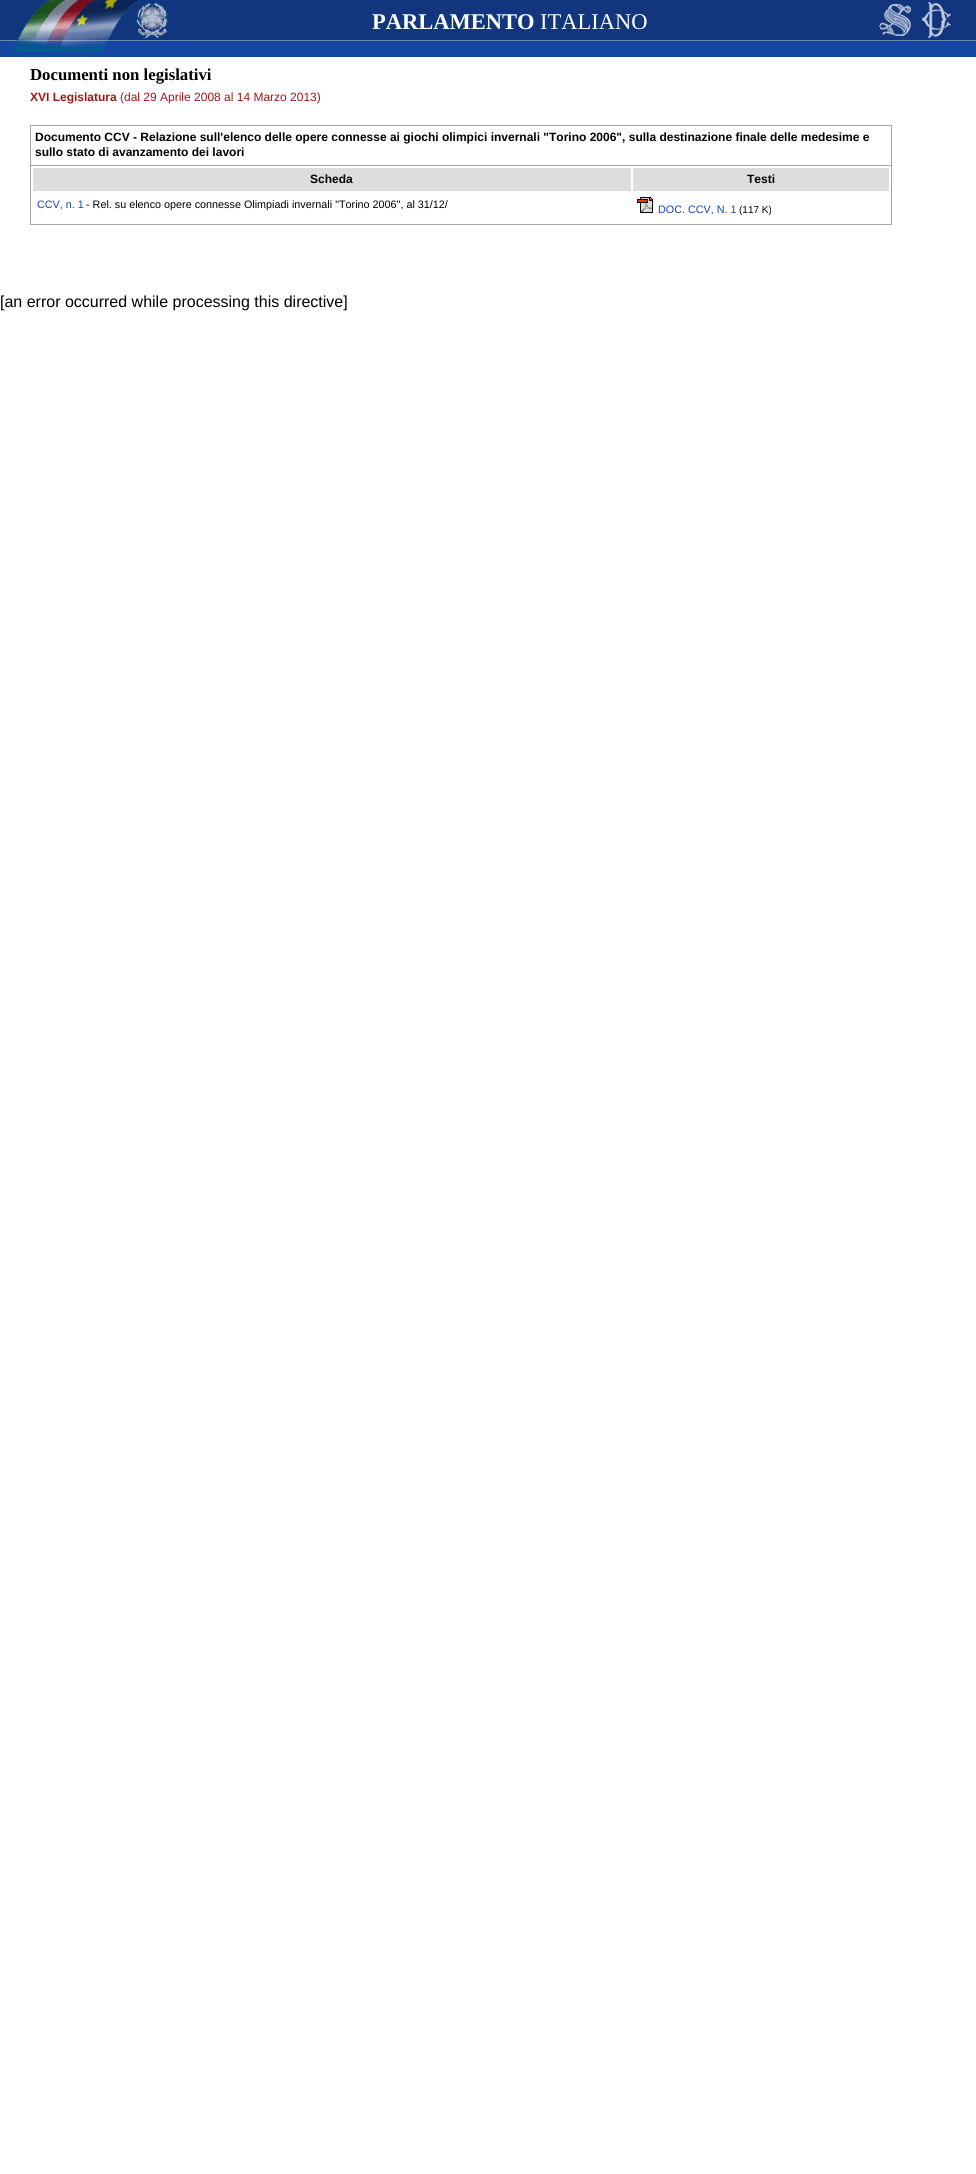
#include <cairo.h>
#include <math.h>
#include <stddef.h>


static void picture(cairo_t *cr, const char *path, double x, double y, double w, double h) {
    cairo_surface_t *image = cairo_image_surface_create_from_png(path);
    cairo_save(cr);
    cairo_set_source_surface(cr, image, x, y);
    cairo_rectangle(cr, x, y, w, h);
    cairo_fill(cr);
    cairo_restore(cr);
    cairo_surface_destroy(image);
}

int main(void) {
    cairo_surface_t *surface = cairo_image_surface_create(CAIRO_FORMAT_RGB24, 976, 2174);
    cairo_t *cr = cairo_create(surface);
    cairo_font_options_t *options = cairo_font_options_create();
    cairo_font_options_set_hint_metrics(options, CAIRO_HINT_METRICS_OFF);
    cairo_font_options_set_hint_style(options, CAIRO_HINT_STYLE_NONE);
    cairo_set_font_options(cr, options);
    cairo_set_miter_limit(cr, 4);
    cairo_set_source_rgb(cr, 1, 1, 1);
    cairo_paint(cr);
    picture(cr, "img1.png", 0, 0, 976, 57);
    picture(cr, "img2.png", 13, 0, 155, 52);
    cairo_select_font_face(cr, "Liberation Serif", CAIRO_FONT_SLANT_NORMAL, CAIRO_FONT_WEIGHT_BOLD);
    cairo_set_font_size(cr, 22.5);
    cairo_set_source_rgb(cr, 1, 1, 1);
    cairo_move_to(cr, 372, 29);
    cairo_show_text(cr, "PARLAMENTO");
    cairo_select_font_face(cr, "Liberation Serif", CAIRO_FONT_SLANT_NORMAL, CAIRO_FONT_WEIGHT_NORMAL);
    cairo_move_to(cr, 540, 29);
    cairo_show_text(cr, "ITALIANO");
    picture(cr, "img3.png", 879, 4, 32, 32);
    picture(cr, "img4.png", 922, 2, 29, 36);
    cairo_select_font_face(cr, "Liberation Serif", CAIRO_FONT_SLANT_NORMAL, CAIRO_FONT_WEIGHT_BOLD);
    cairo_set_font_size(cr, 16.75);
    cairo_set_source_rgb(cr, 0, 0, 0);
    cairo_move_to(cr, 30, 80);
    cairo_show_text(cr, "Documenti non legislativi");
    cairo_select_font_face(cr, "Liberation Sans", CAIRO_FONT_SLANT_NORMAL, CAIRO_FONT_WEIGHT_BOLD);
    cairo_set_font_size(cr, 12);
    cairo_set_source_rgb(cr, 0.608, 0.094, 0.094);
    cairo_move_to(cr, 30, 101);
    cairo_show_text(cr, "XVI Legislatura");
    cairo_select_font_face(cr, "Liberation Sans", CAIRO_FONT_SLANT_NORMAL, CAIRO_FONT_WEIGHT_NORMAL);
    cairo_move_to(cr, 120, 101);
    cairo_show_text(cr, "(dal 29 Aprile 2008 al 14 Marzo 2013)");
    cairo_rectangle(cr, 30.5, 125.5, 861, 99);
    cairo_set_source_rgb(cr, 0.651, 0.651, 0.651);
    cairo_set_line_width(cr, 1);
    cairo_stroke(cr);
    cairo_rectangle(cr, 31, 165, 860, 1);
    cairo_fill(cr);
    cairo_select_font_face(cr, "Liberation Sans", CAIRO_FONT_SLANT_NORMAL, CAIRO_FONT_WEIGHT_BOLD);
    cairo_set_source_rgb(cr, 0, 0, 0);
    cairo_move_to(cr, 35, 141);
    cairo_show_text(cr, "Documento CCV - Relazione sull'elenco delle opere connesse ai giochi olimpici invernali \"Torino 2006\", sulla destinazione finale delle medesime e");
    cairo_move_to(cr, 35, 156);
    cairo_show_text(cr, "sullo stato di avanzamento dei lavori");
    cairo_set_source_rgb(cr, 0.867, 0.867, 0.867);
    cairo_rectangle(cr, 33, 168, 598, 23);
    cairo_fill(cr);
    cairo_set_source_rgb(cr, 0, 0, 0);
    cairo_move_to(cr, 310, 183);
    cairo_show_text(cr, "Scheda");
    cairo_set_source_rgb(cr, 0.867, 0.867, 0.867);
    cairo_rectangle(cr, 633, 168, 256, 23);
    cairo_fill(cr);
    cairo_set_source_rgb(cr, 0, 0, 0);
    cairo_move_to(cr, 747, 183);
    cairo_show_text(cr, "Testi");
    cairo_select_font_face(cr, "Liberation Sans", CAIRO_FONT_SLANT_NORMAL, CAIRO_FONT_WEIGHT_NORMAL);
    cairo_set_font_size(cr, 10.8);
    cairo_set_source_rgb(cr, 0.086, 0.275, 0.639);
    cairo_move_to(cr, 37, 208);
    cairo_show_text(cr, "CCV, n. 1");
    cairo_set_source_rgb(cr, 0, 0, 0);
    cairo_move_to(cr, 86, 208);
    cairo_show_text(cr, "- Rel. su elenco opere connesse Olimpiadi invernali \"Torino 2006\", al 31/12/");
    picture(cr, "img5.png", 637, 197, 16, 16);
    cairo_set_source_rgb(cr, 0.086, 0.275, 0.639);
    cairo_move_to(cr, 658, 213);
    cairo_show_text(cr, "DOC. CCV, N. 1");
    cairo_set_font_size(cr, 10);
    cairo_set_source_rgb(cr, 0, 0, 0);
    cairo_move_to(cr, 739, 213);
    cairo_show_text(cr, "(117 K)");
    cairo_set_font_size(cr, 16);
    cairo_move_to(cr, 0, 307);
    cairo_show_text(cr, "[an error occurred while processing this directive]");
    cairo_surface_write_to_png(surface, "page.png");
    cairo_font_options_destroy(options);
    cairo_destroy(cr);
    cairo_surface_destroy(surface);
    return 0;
}
